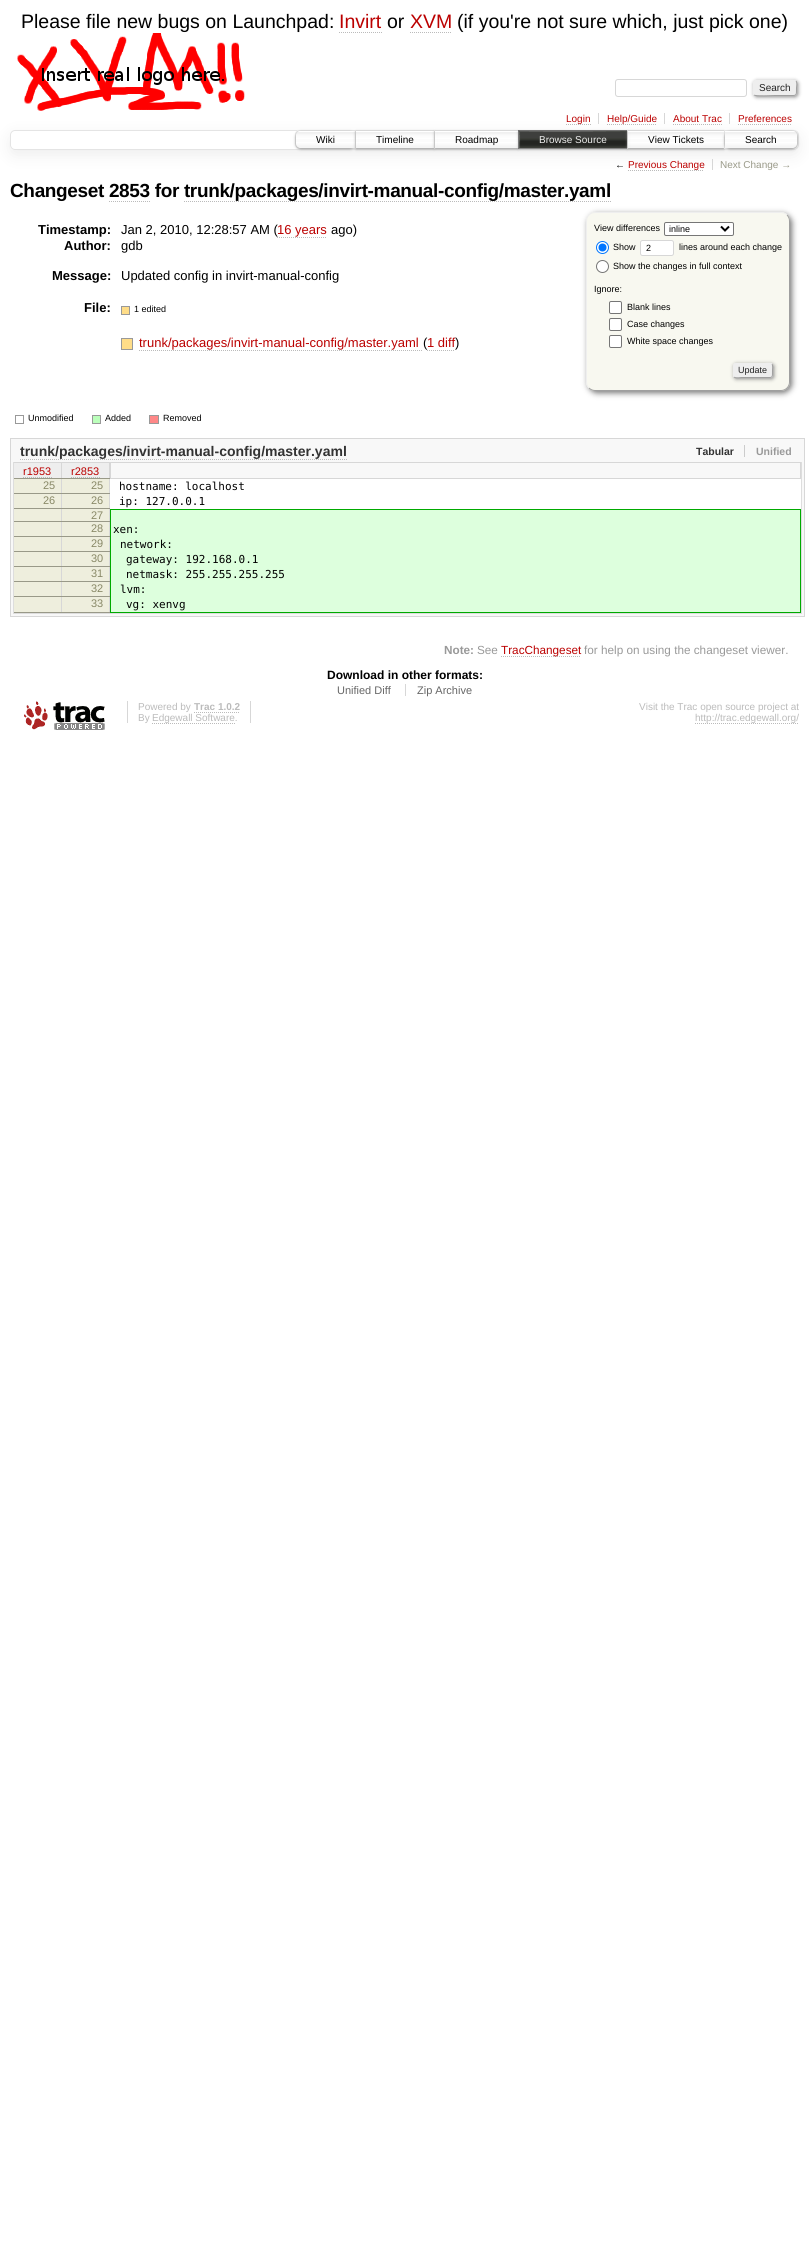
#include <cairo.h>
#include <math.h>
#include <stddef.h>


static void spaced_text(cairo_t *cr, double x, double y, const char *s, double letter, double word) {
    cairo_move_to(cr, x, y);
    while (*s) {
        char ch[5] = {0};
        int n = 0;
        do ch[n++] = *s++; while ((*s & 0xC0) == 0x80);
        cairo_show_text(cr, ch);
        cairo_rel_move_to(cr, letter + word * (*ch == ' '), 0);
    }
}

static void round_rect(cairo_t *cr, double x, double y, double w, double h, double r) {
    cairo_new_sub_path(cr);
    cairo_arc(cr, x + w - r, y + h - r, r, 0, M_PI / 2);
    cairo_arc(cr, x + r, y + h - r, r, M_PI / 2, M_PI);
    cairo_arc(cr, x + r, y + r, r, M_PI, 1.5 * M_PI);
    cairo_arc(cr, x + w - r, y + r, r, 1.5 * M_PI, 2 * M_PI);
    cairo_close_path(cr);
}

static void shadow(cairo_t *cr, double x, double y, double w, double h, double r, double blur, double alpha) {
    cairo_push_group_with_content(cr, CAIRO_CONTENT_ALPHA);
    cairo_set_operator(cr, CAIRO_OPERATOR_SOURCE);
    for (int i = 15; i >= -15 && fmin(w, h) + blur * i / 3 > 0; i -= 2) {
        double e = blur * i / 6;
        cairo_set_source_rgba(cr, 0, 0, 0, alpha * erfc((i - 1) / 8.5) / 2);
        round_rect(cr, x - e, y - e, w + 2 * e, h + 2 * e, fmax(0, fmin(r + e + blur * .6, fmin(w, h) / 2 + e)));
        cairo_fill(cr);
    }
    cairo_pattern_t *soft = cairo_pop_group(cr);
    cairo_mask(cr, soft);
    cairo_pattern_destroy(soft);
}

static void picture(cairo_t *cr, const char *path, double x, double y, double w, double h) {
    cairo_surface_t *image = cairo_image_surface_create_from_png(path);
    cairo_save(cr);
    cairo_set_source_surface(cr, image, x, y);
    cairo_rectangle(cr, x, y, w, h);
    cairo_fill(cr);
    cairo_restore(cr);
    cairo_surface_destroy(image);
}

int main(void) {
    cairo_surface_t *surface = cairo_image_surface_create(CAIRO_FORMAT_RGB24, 809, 2267);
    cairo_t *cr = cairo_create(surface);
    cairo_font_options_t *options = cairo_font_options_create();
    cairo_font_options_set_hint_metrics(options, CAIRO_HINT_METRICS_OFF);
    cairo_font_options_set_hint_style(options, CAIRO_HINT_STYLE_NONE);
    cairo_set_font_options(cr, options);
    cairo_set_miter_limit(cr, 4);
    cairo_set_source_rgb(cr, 1, 1, 1);
    cairo_paint(cr);
    cairo_select_font_face(cr, "Liberation Sans", CAIRO_FONT_SLANT_NORMAL, CAIRO_FONT_WEIGHT_NORMAL);
    cairo_set_font_size(cr, 19.5);
    cairo_set_source_rgb(cr, 0, 0, 0);
    cairo_move_to(cr, 21, 28);
    cairo_show_text(cr, "Please file new bugs on Launchpad:");
    cairo_set_source_rgb(cr, 0.733, 0, 0);
    cairo_move_to(cr, 339, 28);
    cairo_show_text(cr, "Invirt");
    cairo_new_path(cr);
    cairo_move_to(cr, 339, 32.5);
    cairo_line_to(cr, 382, 32.5);
    cairo_set_source_rgb(cr, 0.733, 0.733, 0.733);
    cairo_set_line_width(cr, 1);
    cairo_set_dash(cr, (double[]){1, 1}, 2, 0);
    cairo_stroke(cr);
    cairo_set_source_rgb(cr, 0, 0, 0);
    cairo_move_to(cr, 387, 28);
    cairo_show_text(cr, "or");
    cairo_set_source_rgb(cr, 0.733, 0, 0);
    cairo_move_to(cr, 410, 28);
    cairo_show_text(cr, "XVM");
    cairo_new_path(cr);
    cairo_move_to(cr, 410, 32.5);
    cairo_line_to(cr, 452, 32.5);
    cairo_set_source_rgb(cr, 0.733, 0.733, 0.733);
    cairo_stroke(cr);
    cairo_set_source_rgb(cr, 0, 0, 0);
    cairo_move_to(cr, 457, 28);
    cairo_show_text(cr, "(if you're not sure which, just pick one)");
    picture(cr, "img1.png", 17, 33, 228, 78);
    round_rect(cr, 615.5, 79.5, 131, 17, 2.5);
    cairo_set_source_rgb(cr, 0.843, 0.843, 0.843);
    cairo_set_dash(cr, NULL, 0, 0);
    cairo_stroke(cr);
    cairo_set_source_rgb(cr, 0.533, 0.533, 0.533);
    shadow(cr, 754, 81, 44, 16, 3, 2, 1);
    cairo_set_source_rgb(cr, 0.933, 0.933, 0.933);
    round_rect(cr, 753, 80, 44, 16, 3);
    cairo_fill(cr);
    cairo_new_path(cr);
    cairo_move_to(cr, 796, 81);
    cairo_curve_to(cr, 797.5, 83, 796.5, 86, 796.5, 88);
    cairo_curve_to(cr, 796.5, 96.5, 797, 95.5, 787.5, 95.5);
    cairo_line_to(cr, 775, 95.5);
    cairo_curve_to(cr, 772, 95.5, 756, 96.5, 754, 95);
    cairo_set_source_rgb(cr, 0.624, 0.624, 0.624);
    cairo_stroke(cr);
    cairo_new_path(cr);
    cairo_move_to(cr, 754, 95);
    cairo_curve_to(cr, 752.5, 93, 753.5, 90, 753.5, 88);
    cairo_curve_to(cr, 753.5, 79.5, 753, 80.5, 762.5, 80.5);
    cairo_line_to(cr, 775, 80.5);
    cairo_curve_to(cr, 778, 80.5, 794, 79.5, 796, 81);
    cairo_set_source_rgb(cr, 0.933, 0.933, 0.933);
    cairo_stroke(cr);
    cairo_set_font_size(cr, 10);
    cairo_set_source_rgb(cr, 0.133, 0.133, 0.133);
    cairo_move_to(cr, 759, 91);
    cairo_show_text(cr, "Search");
    cairo_save(cr);
    cairo_set_fill_rule(cr, CAIRO_FILL_RULE_EVEN_ODD);
    cairo_new_path(cr);
    cairo_move_to(cr, 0, 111);
    cairo_line_to(cr, 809, 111);
    cairo_line_to(cr, 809, 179);
    cairo_line_to(cr, 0, 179);
    cairo_close_path(cr);
    cairo_move_to(cr, 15, 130);
    cairo_line_to(cr, 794, 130);
    cairo_curve_to(cr, 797, 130, 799, 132, 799, 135);
    cairo_line_to(cr, 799, 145);
    cairo_curve_to(cr, 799, 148, 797, 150, 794, 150);
    cairo_line_to(cr, 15, 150);
    cairo_curve_to(cr, 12, 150, 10, 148, 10, 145);
    cairo_line_to(cr, 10, 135);
    cairo_curve_to(cr, 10, 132, 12, 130, 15, 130);
    cairo_close_path(cr);
    cairo_clip(cr);
    cairo_set_source_rgb(cr, 0.933, 0.933, 0.933);
    shadow(cr, 10, 135, 789, 20, 5, 7.5, 1);
    cairo_restore(cr);
    cairo_set_source_rgb(cr, 0.843, 0.843, 0.843);
    cairo_rectangle(cr, 598, 113, 1, 11);
    cairo_fill(cr);
    cairo_new_path(cr);
    cairo_move_to(cr, 566, 124.5);
    cairo_line_to(cr, 591, 124.5);
    cairo_set_source_rgb(cr, 0.733, 0.733, 0.733);
    cairo_set_dash(cr, (double[]){1, 1}, 2, 0);
    cairo_stroke(cr);
    cairo_set_source_rgb(cr, 0.733, 0, 0);
    cairo_move_to(cr, 566, 122);
    cairo_show_text(cr, "Login");
    cairo_set_source_rgb(cr, 0.843, 0.843, 0.843);
    cairo_rectangle(cr, 664, 113, 1, 11);
    cairo_fill(cr);
    cairo_new_path(cr);
    cairo_move_to(cr, 607, 124.5);
    cairo_line_to(cr, 657, 124.5);
    cairo_set_source_rgb(cr, 0.733, 0.733, 0.733);
    cairo_stroke(cr);
    cairo_set_source_rgb(cr, 0.733, 0, 0);
    cairo_move_to(cr, 607, 122);
    cairo_show_text(cr, "Help/Guide");
    cairo_set_source_rgb(cr, 0.843, 0.843, 0.843);
    cairo_rectangle(cr, 729, 113, 1, 11);
    cairo_fill(cr);
    cairo_set_source_rgb(cr, 0.733, 0, 0);
    cairo_move_to(cr, 673, 122);
    cairo_show_text(cr, "About Trac");
    cairo_new_path(cr);
    cairo_move_to(cr, 673, 124.5);
    cairo_line_to(cr, 722, 124.5);
    cairo_set_source_rgb(cr, 0.733, 0.733, 0.733);
    cairo_stroke(cr);
    cairo_set_source_rgb(cr, 0.733, 0, 0);
    cairo_move_to(cr, 738, 122);
    cairo_show_text(cr, "Preferences");
    cairo_new_path(cr);
    cairo_move_to(cr, 738, 124.5);
    cairo_line_to(cr, 792, 124.5);
    cairo_set_source_rgb(cr, 0.733, 0.733, 0.733);
    cairo_stroke(cr);
    round_rect(cr, 10.5, 130.5, 788, 19, 4.5);
    cairo_set_source_rgb(cr, 0.894, 0.894, 0.894);
    cairo_set_dash(cr, NULL, 0, 0);
    cairo_stroke(cr);
    cairo_set_source_rgb(cr, 1, 1, 1);
    cairo_new_path(cr);
    cairo_move_to(cr, 300, 130);
    cairo_line_to(cr, 356, 130);
    cairo_line_to(cr, 356, 149);
    cairo_line_to(cr, 300, 149);
    cairo_curve_to(cr, 297, 149, 295, 147, 295, 144);
    cairo_line_to(cr, 295, 135);
    cairo_curve_to(cr, 295, 132, 297, 130, 300, 130);
    cairo_close_path(cr);
    cairo_fill(cr);
    picture(cr, "img2.png", 295, 132, 60, 17);
    cairo_new_path(cr);
    cairo_move_to(cr, 300, 130.5);
    cairo_line_to(cr, 355.5, 130.5);
    cairo_line_to(cr, 355.5, 148.5);
    cairo_line_to(cr, 300, 148.5);
    cairo_curve_to(cr, 297.5, 148.5, 295.5, 146.5, 295.5, 144);
    cairo_line_to(cr, 295.5, 135);
    cairo_curve_to(cr, 295.5, 132.5, 297.5, 130.5, 300, 130.5);
    cairo_close_path(cr);
    cairo_set_source_rgb(cr, 0.894, 0.894, 0.894);
    cairo_stroke(cr);
    cairo_save(cr);
    cairo_set_fill_rule(cr, CAIRO_FILL_RULE_EVEN_ODD);
    cairo_new_path(cr);
    cairo_move_to(cr, 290, 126);
    cairo_line_to(cr, 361, 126);
    cairo_line_to(cr, 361, 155);
    cairo_line_to(cr, 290, 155);
    cairo_close_path(cr);
    cairo_move_to(cr, 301, 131);
    cairo_line_to(cr, 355, 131);
    cairo_line_to(cr, 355, 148);
    cairo_line_to(cr, 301, 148);
    cairo_curve_to(cr, 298, 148, 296, 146, 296, 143);
    cairo_line_to(cr, 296, 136);
    cairo_curve_to(cr, 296, 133, 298, 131, 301, 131);
    cairo_close_path(cr);
    cairo_clip(cr);
    cairo_set_source_rgb(cr, 0.6, 0.6, 0.6);
    shadow(cr, 296, 132, 59, 17, 5, 1.5, 1);
    cairo_restore(cr);
    cairo_set_source_rgb(cr, 0, 0, 0);
    cairo_move_to(cr, 316, 143);
    cairo_show_text(cr, "Wiki");
    cairo_set_source_rgb(cr, 1, 1, 1);
    cairo_rectangle(cr, 356, 133, 2, 15);
    cairo_fill(cr);
    picture(cr, "img3.png", 356, 132, 78, 16);
    cairo_rectangle(cr, 355.5, 130.5, 79, 18);
    cairo_set_source_rgb(cr, 0.894, 0.894, 0.894);
    cairo_stroke(cr);
    cairo_save(cr);
    cairo_set_fill_rule(cr, CAIRO_FILL_RULE_EVEN_ODD);
    cairo_new_path(cr);
    cairo_move_to(cr, 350, 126);
    cairo_line_to(cr, 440, 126);
    cairo_line_to(cr, 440, 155);
    cairo_line_to(cr, 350, 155);
    cairo_close_path(cr);
    cairo_move_to(cr, 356, 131);
    cairo_line_to(cr, 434, 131);
    cairo_line_to(cr, 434, 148);
    cairo_line_to(cr, 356, 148);
    cairo_close_path(cr);
    cairo_clip(cr);
    cairo_set_source_rgb(cr, 0.6, 0.6, 0.6);
    shadow(cr, 356, 132, 78, 17, 0, 1.5, 1);
    cairo_restore(cr);
    cairo_set_source_rgb(cr, 0, 0, 0);
    cairo_move_to(cr, 376, 143);
    cairo_show_text(cr, "Timeline");
    cairo_set_source_rgb(cr, 1, 1, 1);
    cairo_rectangle(cr, 435, 131, 2, 17);
    cairo_fill(cr);
    picture(cr, "img4.png", 435, 132, 83, 16);
    cairo_rectangle(cr, 434.5, 130.5, 84, 18);
    cairo_set_source_rgb(cr, 0.894, 0.894, 0.894);
    cairo_stroke(cr);
    cairo_save(cr);
    cairo_set_fill_rule(cr, CAIRO_FILL_RULE_EVEN_ODD);
    cairo_new_path(cr);
    cairo_move_to(cr, 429, 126);
    cairo_line_to(cr, 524, 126);
    cairo_line_to(cr, 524, 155);
    cairo_line_to(cr, 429, 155);
    cairo_close_path(cr);
    cairo_move_to(cr, 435, 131);
    cairo_line_to(cr, 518, 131);
    cairo_line_to(cr, 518, 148);
    cairo_line_to(cr, 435, 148);
    cairo_close_path(cr);
    cairo_clip(cr);
    cairo_set_source_rgb(cr, 0.6, 0.6, 0.6);
    shadow(cr, 435, 132, 83, 17, 0, 1.5, 1);
    cairo_restore(cr);
    cairo_set_source_rgb(cr, 0, 0, 0);
    cairo_move_to(cr, 455, 143);
    cairo_show_text(cr, "Roadmap");
    cairo_rectangle(cr, 518.5, 130.5, 109, 18);
    cairo_set_source_rgb(cr, 0.4, 0.4, 0.4);
    cairo_stroke(cr);
    cairo_set_source_rgb(cr, 0.6, 0.6, 0.6);
    shadow(cr, 519, 132, 108, 17, 0, 1.5, 1);
    cairo_set_source_rgb(cr, 0, 0, 0);
    cairo_rectangle(cr, 519, 131, 108, 17);
    cairo_fill(cr);
    picture(cr, "img5.png", 519, 131, 108, 17);
    cairo_set_source_rgb(cr, 0.933, 0.933, 0.933);
    cairo_move_to(cr, 539, 143);
    cairo_show_text(cr, "Browse Source");
    cairo_set_source_rgb(cr, 1, 1, 1);
    cairo_rectangle(cr, 628, 131, 2, 17);
    cairo_fill(cr);
    picture(cr, "img6.png", 628, 132, 96, 16);
    cairo_rectangle(cr, 627.5, 130.5, 97, 18);
    cairo_set_source_rgb(cr, 0.894, 0.894, 0.894);
    cairo_stroke(cr);
    cairo_save(cr);
    cairo_set_fill_rule(cr, CAIRO_FILL_RULE_EVEN_ODD);
    cairo_new_path(cr);
    cairo_move_to(cr, 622, 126);
    cairo_line_to(cr, 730, 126);
    cairo_line_to(cr, 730, 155);
    cairo_line_to(cr, 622, 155);
    cairo_close_path(cr);
    cairo_move_to(cr, 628, 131);
    cairo_line_to(cr, 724, 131);
    cairo_line_to(cr, 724, 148);
    cairo_line_to(cr, 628, 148);
    cairo_close_path(cr);
    cairo_clip(cr);
    cairo_set_source_rgb(cr, 0.6, 0.6, 0.6);
    shadow(cr, 628, 132, 96, 17, 0, 1.5, 1);
    cairo_restore(cr);
    cairo_set_source_rgb(cr, 0, 0, 0);
    cairo_move_to(cr, 648, 143);
    cairo_show_text(cr, "View Tickets");
    cairo_set_source_rgb(cr, 1, 1, 1);
    cairo_new_path(cr);
    cairo_move_to(cr, 724, 130);
    cairo_line_to(cr, 793, 130);
    cairo_curve_to(cr, 796, 130, 798, 132, 798, 135);
    cairo_line_to(cr, 798, 144);
    cairo_curve_to(cr, 798, 147, 796, 149, 793, 149);
    cairo_line_to(cr, 724, 149);
    cairo_close_path(cr);
    cairo_fill(cr);
    picture(cr, "img7.png", 725, 132, 73, 17);
    cairo_new_path(cr);
    cairo_move_to(cr, 724.5, 130.5);
    cairo_line_to(cr, 793, 130.5);
    cairo_curve_to(cr, 795.5, 130.5, 797.5, 132.5, 797.5, 135);
    cairo_line_to(cr, 797.5, 144);
    cairo_curve_to(cr, 797.5, 146.5, 795.5, 148.5, 793, 148.5);
    cairo_line_to(cr, 724.5, 148.5);
    cairo_close_path(cr);
    cairo_set_source_rgb(cr, 0.894, 0.894, 0.894);
    cairo_stroke(cr);
    cairo_save(cr);
    cairo_set_fill_rule(cr, CAIRO_FILL_RULE_EVEN_ODD);
    cairo_new_path(cr);
    cairo_move_to(cr, 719, 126);
    cairo_line_to(cr, 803, 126);
    cairo_line_to(cr, 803, 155);
    cairo_line_to(cr, 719, 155);
    cairo_close_path(cr);
    cairo_move_to(cr, 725, 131);
    cairo_line_to(cr, 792, 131);
    cairo_curve_to(cr, 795, 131, 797, 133, 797, 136);
    cairo_line_to(cr, 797, 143);
    cairo_curve_to(cr, 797, 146, 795, 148, 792, 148);
    cairo_line_to(cr, 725, 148);
    cairo_close_path(cr);
    cairo_clip(cr);
    cairo_set_source_rgb(cr, 0.6, 0.6, 0.6);
    shadow(cr, 725, 132, 72, 17, 5, 1.5, 1);
    cairo_restore(cr);
    cairo_set_source_rgb(cr, 0, 0, 0);
    cairo_move_to(cr, 745, 143);
    cairo_show_text(cr, "Search");
    cairo_set_source_rgb(cr, 0.843, 0.843, 0.843);
    cairo_rectangle(cr, 712, 159, 1, 11);
    cairo_fill(cr);
    cairo_set_source_rgb(cr, 0, 0, 0);
    cairo_move_to(cr, 615, 168);
    cairo_show_text(cr, "←");
    cairo_new_path(cr);
    cairo_move_to(cr, 628, 170.5);
    cairo_line_to(cr, 704, 170.5);
    cairo_set_source_rgb(cr, 0.733, 0.733, 0.733);
    cairo_set_dash(cr, (double[]){1, 1}, 2, 0);
    cairo_stroke(cr);
    cairo_set_source_rgb(cr, 0.733, 0, 0);
    cairo_move_to(cr, 628, 168);
    cairo_show_text(cr, "Previous Change");
    cairo_set_source_rgb(cr, 0.6, 0.6, 0.533);
    cairo_move_to(cr, 720, 168);
    cairo_show_text(cr, "Next Change →");
    cairo_select_font_face(cr, "Liberation Sans", CAIRO_FONT_SLANT_NORMAL, CAIRO_FONT_WEIGHT_BOLD);
    cairo_set_font_size(cr, 19);
    cairo_set_source_rgb(cr, 0, 0, 0);
    spaced_text(cr, 10, 197, "Changeset 2853 for trunk/packages/invirt-manual-config/master.yaml", -0.35, 0);
    cairo_new_path(cr);
    cairo_move_to(cr, 109, 201.5);
    cairo_line_to(cr, 150, 201.5);
    cairo_set_source_rgb(cr, 0.733, 0.733, 0.733);
    cairo_stroke(cr);
    cairo_new_path(cr);
    cairo_move_to(cr, 184, 201.5);
    cairo_line_to(cr, 612, 201.5);
    cairo_stroke(cr);
    cairo_set_font_size(cr, 13);
    cairo_set_source_rgb(cr, 0, 0, 0);
    cairo_move_to(cr, 38, 234);
    cairo_show_text(cr, "Timestamp:");
    cairo_select_font_face(cr, "Liberation Sans", CAIRO_FONT_SLANT_NORMAL, CAIRO_FONT_WEIGHT_NORMAL);
    cairo_move_to(cr, 121, 234);
    cairo_show_text(cr, "Jan 2, 2010, 12:28:57 AM (");
    cairo_set_source_rgb(cr, 0.733, 0, 0);
    cairo_move_to(cr, 277, 234);
    cairo_show_text(cr, "16 years");
    cairo_new_path(cr);
    cairo_move_to(cr, 277, 237.5);
    cairo_line_to(cr, 327, 237.5);
    cairo_set_source_rgb(cr, 0.733, 0.733, 0.733);
    cairo_stroke(cr);
    cairo_set_source_rgb(cr, 0, 0, 0);
    cairo_move_to(cr, 331, 234);
    cairo_show_text(cr, "ago)");
    cairo_select_font_face(cr, "Liberation Sans", CAIRO_FONT_SLANT_NORMAL, CAIRO_FONT_WEIGHT_BOLD);
    cairo_move_to(cr, 64, 250);
    cairo_show_text(cr, "Author:");
    cairo_select_font_face(cr, "Liberation Sans", CAIRO_FONT_SLANT_NORMAL, CAIRO_FONT_WEIGHT_NORMAL);
    cairo_move_to(cr, 121, 250);
    cairo_show_text(cr, "gdb");
    cairo_select_font_face(cr, "Liberation Sans", CAIRO_FONT_SLANT_NORMAL, CAIRO_FONT_WEIGHT_BOLD);
    cairo_move_to(cr, 52, 280);
    cairo_show_text(cr, "Message:");
    cairo_select_font_face(cr, "Liberation Sans", CAIRO_FONT_SLANT_NORMAL, CAIRO_FONT_WEIGHT_NORMAL);
    cairo_move_to(cr, 121, 280);
    cairo_show_text(cr, "Updated config in invirt-manual-config");
    cairo_select_font_face(cr, "Liberation Sans", CAIRO_FONT_SLANT_NORMAL, CAIRO_FONT_WEIGHT_BOLD);
    cairo_move_to(cr, 84, 312);
    cairo_show_text(cr, "File:");
    cairo_set_source_rgb(cr, 1, 0.867, 0.533);
    cairo_rectangle(cr, 121.5, 306.5, 8, 8);
    cairo_fill_preserve(cr);
    cairo_set_source_rgb(cr, 0.6, 0.6, 0.6);
    cairo_set_dash(cr, NULL, 0, 0);
    cairo_stroke(cr);
    cairo_select_font_face(cr, "Liberation Sans", CAIRO_FONT_SLANT_NORMAL, CAIRO_FONT_WEIGHT_NORMAL);
    cairo_set_font_size(cr, 9);
    cairo_set_source_rgb(cr, 0, 0, 0);
    cairo_move_to(cr, 134, 312);
    cairo_show_text(cr, "1 edited");
    cairo_set_source_rgb(cr, 1, 0.867, 0.533);
    cairo_rectangle(cr, 121.5, 338.5, 11, 11);
    cairo_fill_preserve(cr);
    cairo_set_source_rgb(cr, 0.6, 0.6, 0.6);
    cairo_stroke(cr);
    cairo_set_font_size(cr, 13);
    cairo_set_source_rgb(cr, 0.733, 0, 0);
    cairo_move_to(cr, 139, 347);
    cairo_show_text(cr, "trunk/packages/invirt-manual-config/master.yaml");
    cairo_new_path(cr);
    cairo_move_to(cr, 139, 350.5);
    cairo_line_to(cr, 423, 350.5);
    cairo_set_source_rgb(cr, 0.733, 0.733, 0.733);
    cairo_set_dash(cr, (double[]){1, 1}, 2, 0);
    cairo_stroke(cr);
    cairo_set_source_rgb(cr, 0, 0, 0);
    cairo_move_to(cr, 423, 347);
    cairo_show_text(cr, "(");
    cairo_set_source_rgb(cr, 0.733, 0, 0);
    cairo_move_to(cr, 427, 347);
    cairo_show_text(cr, "1 diff");
    cairo_new_path(cr);
    cairo_move_to(cr, 427, 350.5);
    cairo_line_to(cr, 455, 350.5);
    cairo_set_source_rgb(cr, 0.733, 0.733, 0.733);
    cairo_stroke(cr);
    cairo_set_source_rgb(cr, 0, 0, 0);
    cairo_move_to(cr, 455, 347);
    cairo_show_text(cr, ")");
    cairo_set_source_rgb(cr, 0.467, 0.467, 0.467);
    shadow(cr, 588, 214, 204, 179, 9, 3, 1);
    cairo_set_source_rgb(cr, 0.969, 0.969, 0.941);
    round_rect(cr, 586, 212, 204, 179, 9);
    cairo_fill(cr);
    cairo_new_path(cr);
    cairo_move_to(cr, 787, 215);
    cairo_curve_to(cr, 788.5, 216.5, 789.5, 218.5, 789.5, 221);
    cairo_line_to(cr, 789.5, 382);
    cairo_curve_to(cr, 789.5, 384.5, 788.5, 386.5, 787, 388);
    cairo_curve_to(cr, 785.5, 389.5, 783.5, 390.5, 781, 390.5);
    cairo_line_to(cr, 595, 390.5);
    cairo_curve_to(cr, 592.5, 390.5, 590.5, 389.5, 589, 388);
    cairo_set_source_rgb(cr, 0.624, 0.624, 0.624);
    cairo_set_dash(cr, NULL, 0, 0);
    cairo_stroke(cr);
    cairo_new_path(cr);
    cairo_move_to(cr, 589, 388);
    cairo_curve_to(cr, 587.5, 386.5, 586.5, 384.5, 586.5, 382);
    cairo_line_to(cr, 586.5, 221);
    cairo_curve_to(cr, 586.5, 218.5, 587.5, 216.5, 589, 215);
    cairo_curve_to(cr, 590.5, 213.5, 592.5, 212.5, 595, 212.5);
    cairo_line_to(cr, 781, 212.5);
    cairo_curve_to(cr, 783.5, 212.5, 785.5, 213.5, 787, 215);
    cairo_set_source_rgb(cr, 0.933, 0.933, 0.933);
    cairo_stroke(cr);
    cairo_set_font_size(cr, 9);
    cairo_set_source_rgb(cr, 0, 0, 0);
    cairo_move_to(cr, 594, 231);
    cairo_show_text(cr, "View differences");
    cairo_set_source_rgb(cr, 1, 1, 1);
    round_rect(cr, 664.5, 222.5, 69, 13, 1.5);
    cairo_fill_preserve(cr);
    cairo_set_source_rgb(cr, 0.463, 0.463, 0.463);
    cairo_stroke(cr);
    cairo_new_path(cr);
    cairo_move_to(cr, 721, 226.5);
    cairo_line_to(cr, 725, 230.5);
    cairo_line_to(cr, 729, 226.5);
    cairo_set_source_rgb(cr, 0, 0, 0);
    cairo_set_line_width(cr, 2);
    cairo_stroke(cr);
    cairo_move_to(cr, 669, 232);
    cairo_show_text(cr, "inline");
    cairo_set_source_rgb(cr, 1, 1, 1);
    cairo_new_path(cr);
    cairo_arc(cr, 602.5, 247.5, 6, 0, 2 * M_PI);
    cairo_fill_preserve(cr);
    cairo_set_source_rgb(cr, 0, 0.459, 1);
    cairo_set_line_width(cr, 1);
    cairo_stroke(cr);
    cairo_arc(cr, 602.5, 247.5, 4, 0, 2 * M_PI);
    cairo_fill(cr);
    cairo_set_source_rgb(cr, 0, 0, 0);
    cairo_move_to(cr, 613, 250);
    cairo_show_text(cr, "Show");
    cairo_set_source_rgb(cr, 1, 1, 1);
    round_rect(cr, 640.5, 240.5, 33, 15, 2);
    cairo_fill_preserve(cr);
    cairo_set_source_rgb(cr, 0.843, 0.843, 0.843);
    cairo_stroke(cr);
    cairo_set_source_rgb(cr, 0, 0, 0);
    cairo_move_to(cr, 646, 251);
    cairo_show_text(cr, "2");
    cairo_move_to(cr, 679, 250);
    cairo_show_text(cr, "lines around each change");
    cairo_set_source_rgb(cr, 1, 1, 1);
    cairo_new_path(cr);
    cairo_arc(cr, 602.5, 266.5, 6, 0, 2 * M_PI);
    cairo_fill_preserve(cr);
    cairo_set_source_rgb(cr, 0.463, 0.463, 0.463);
    cairo_stroke(cr);
    cairo_set_source_rgb(cr, 0, 0, 0);
    cairo_move_to(cr, 613, 269);
    cairo_show_text(cr, "Show the changes in full context");
    cairo_move_to(cr, 594, 292);
    cairo_show_text(cr, "Ignore:");
    cairo_set_source_rgb(cr, 1, 1, 1);
    round_rect(cr, 609.5, 301.5, 12, 12, 1.5);
    cairo_fill_preserve(cr);
    cairo_set_source_rgb(cr, 0.463, 0.463, 0.463);
    cairo_stroke(cr);
    cairo_set_source_rgb(cr, 0, 0, 0);
    cairo_move_to(cr, 627, 310);
    cairo_show_text(cr, "Blank lines");
    cairo_set_source_rgb(cr, 1, 1, 1);
    round_rect(cr, 609.5, 318.5, 12, 12, 1.5);
    cairo_fill_preserve(cr);
    cairo_set_source_rgb(cr, 0.463, 0.463, 0.463);
    cairo_stroke(cr);
    cairo_set_source_rgb(cr, 0, 0, 0);
    cairo_move_to(cr, 627, 327);
    cairo_show_text(cr, "Case changes");
    cairo_set_source_rgb(cr, 1, 1, 1);
    round_rect(cr, 609.5, 335.5, 12, 12, 1.5);
    cairo_fill_preserve(cr);
    cairo_set_source_rgb(cr, 0.463, 0.463, 0.463);
    cairo_stroke(cr);
    cairo_set_source_rgb(cr, 0, 0, 0);
    cairo_move_to(cr, 627, 344);
    cairo_show_text(cr, "White space changes");
    cairo_set_source_rgb(cr, 0.533, 0.533, 0.533);
    shadow(cr, 734, 364, 40, 15, 2.5, 2, 1);
    cairo_set_source_rgb(cr, 0.933, 0.933, 0.933);
    round_rect(cr, 733, 363, 40, 15, 2.5);
    cairo_fill(cr);
    cairo_new_path(cr);
    cairo_move_to(cr, 772, 364);
    cairo_curve_to(cr, 773, 365.5, 772.5, 369, 772.5, 370.5);
    cairo_curve_to(cr, 772.5, 378.5, 773, 377.5, 764.5, 377.5);
    cairo_line_to(cr, 741.5, 377.5);
    cairo_curve_to(cr, 741, 377.5, 735.5, 378.5, 734, 377);
    cairo_set_source_rgb(cr, 0.624, 0.624, 0.624);
    cairo_stroke(cr);
    cairo_new_path(cr);
    cairo_move_to(cr, 734, 377);
    cairo_curve_to(cr, 733, 375.5, 733.5, 372, 733.5, 370.5);
    cairo_curve_to(cr, 733.5, 362.5, 733, 363.5, 741.5, 363.5);
    cairo_line_to(cr, 764.5, 363.5);
    cairo_curve_to(cr, 765, 363.5, 770.5, 362.5, 772, 364);
    cairo_set_source_rgb(cr, 0.933, 0.933, 0.933);
    cairo_stroke(cr);
    cairo_set_source_rgb(cr, 0.133, 0.133, 0.133);
    cairo_move_to(cr, 738, 373);
    cairo_show_text(cr, "Update");
    cairo_rectangle(cr, 15.5, 415.5, 8, 8);
    cairo_set_source_rgb(cr, 0.6, 0.6, 0.6);
    cairo_stroke(cr);
    cairo_set_source_rgb(cr, 0, 0, 0);
    cairo_move_to(cr, 28, 421);
    cairo_show_text(cr, "Unmodified");
    cairo_set_source_rgb(cr, 0.733, 1, 0.733);
    cairo_rectangle(cr, 92.5, 415.5, 8, 8);
    cairo_fill_preserve(cr);
    cairo_set_source_rgb(cr, 0.6, 0.6, 0.6);
    cairo_stroke(cr);
    cairo_set_source_rgb(cr, 0, 0, 0);
    cairo_move_to(cr, 105, 421);
    cairo_show_text(cr, "Added");
    cairo_set_source_rgb(cr, 1, 0.533, 0.533);
    cairo_rectangle(cr, 149.5, 415.5, 9, 8);
    cairo_fill_preserve(cr);
    cairo_set_source_rgb(cr, 0.6, 0.6, 0.6);
    cairo_stroke(cr);
    cairo_set_source_rgb(cr, 0, 0, 0);
    cairo_move_to(cr, 163, 421);
    cairo_show_text(cr, "Removed");
    cairo_set_source_rgb(cr, 0.969, 0.969, 0.969);
    cairo_rectangle(cr, 10.5, 438.5, 794, 178);
    cairo_fill_preserve(cr);
    cairo_set_source_rgb(cr, 0.843, 0.843, 0.843);
    cairo_stroke(cr);
    cairo_select_font_face(cr, "Liberation Sans", CAIRO_FONT_SLANT_NORMAL, CAIRO_FONT_WEIGHT_BOLD);
    cairo_set_font_size(cr, 14);
    cairo_set_source_rgb(cr, 0.2, 0.2, 0.2);
    cairo_move_to(cr, 20, 456);
    cairo_show_text(cr, "trunk/packages/invirt-manual-config/master.yaml");
    cairo_new_path(cr);
    cairo_move_to(cr, 20, 459.5);
    cairo_line_to(cr, 347, 459.5);
    cairo_set_source_rgb(cr, 0.733, 0.733, 0.733);
    cairo_set_dash(cr, (double[]){1, 1}, 2, 0);
    cairo_stroke(cr);
    cairo_set_font_size(cr, 10.5);
    cairo_set_source_rgb(cr, 0.2, 0.2, 0.2);
    cairo_move_to(cr, 696, 455);
    cairo_show_text(cr, "Tabular");
    cairo_set_source_rgb(cr, 0.6, 0.6, 0.6);
    cairo_move_to(cr, 756, 455);
    cairo_show_text(cr, "Unified");
    cairo_set_source_rgb(cr, 0.8, 0.8, 0.8);
    cairo_rectangle(cr, 744, 445, 1, 12);
    cairo_fill(cr);
    cairo_set_source_rgb(cr, 0.867, 0.867, 0.867);
    cairo_rectangle(cr, 801, 462, 1, 152);
    cairo_fill(cr);
    cairo_rectangle(cr, 13, 613, 789, 1);
    cairo_fill(cr);
    cairo_rectangle(cr, 13, 462, 1, 152);
    cairo_fill(cr);
    cairo_set_source_rgb(cr, 0.933, 0.933, 0.933);
    cairo_rectangle(cr, 14, 463, 47, 15);
    cairo_fill(cr);
    cairo_set_source_rgb(cr, 0.843, 0.843, 0.843);
    cairo_rectangle(cr, 14, 462, 96, 1);
    cairo_fill(cr);
    cairo_rectangle(cr, 61, 462, 1, 151);
    cairo_fill(cr);
    cairo_set_source_rgb(cr, 0.6, 0.6, 0.533);
    cairo_rectangle(cr, 14, 478, 48, 1);
    cairo_fill(cr);
    cairo_select_font_face(cr, "Liberation Sans", CAIRO_FONT_SLANT_NORMAL, CAIRO_FONT_WEIGHT_NORMAL);
    cairo_set_font_size(cr, 11);
    cairo_set_source_rgb(cr, 0.733, 0, 0);
    cairo_move_to(cr, 23, 475);
    cairo_show_text(cr, "r1953");
    cairo_new_path(cr);
    cairo_move_to(cr, 23, 477.5);
    cairo_line_to(cr, 52, 477.5);
    cairo_set_source_rgb(cr, 0.733, 0.733, 0.733);
    cairo_stroke(cr);
    cairo_set_source_rgb(cr, 0.933, 0.933, 0.933);
    cairo_rectangle(cr, 62, 463, 47, 15);
    cairo_fill(cr);
    cairo_set_source_rgb(cr, 0.843, 0.843, 0.843);
    cairo_rectangle(cr, 109, 462, 1, 151);
    cairo_fill(cr);
    cairo_set_source_rgb(cr, 0.6, 0.6, 0.533);
    cairo_rectangle(cr, 62, 478, 48, 1);
    cairo_fill(cr);
    cairo_set_source_rgb(cr, 0.733, 0, 0);
    cairo_move_to(cr, 71, 475);
    cairo_show_text(cr, "r2853");
    cairo_new_path(cr);
    cairo_move_to(cr, 71, 477.5);
    cairo_line_to(cr, 100, 477.5);
    cairo_set_source_rgb(cr, 0.733, 0.733, 0.733);
    cairo_stroke(cr);
    cairo_rectangle(cr, 110.5, 462.5, 690, 16);
    cairo_set_source_rgb(cr, 0.843, 0.843, 0.843);
    cairo_set_dash(cr, NULL, 0, 0);
    cairo_stroke(cr);
    cairo_set_source_rgb(cr, 0.933, 0.933, 0.867);
    cairo_rectangle(cr, 14, 479, 47, 14);
    cairo_fill(cr);
    cairo_set_source_rgb(cr, 0.6, 0.6, 0.533);
    cairo_rectangle(cr, 14, 493, 96, 1);
    cairo_fill(cr);
    cairo_set_source_rgb(cr, 0.533, 0.533, 0.4);
    cairo_move_to(cr, 43, 489);
    cairo_show_text(cr, "25");
    cairo_set_source_rgb(cr, 0.933, 0.933, 0.867);
    cairo_rectangle(cr, 62, 479, 47, 14);
    cairo_fill(cr);
    cairo_set_source_rgb(cr, 0.533, 0.533, 0.4);
    cairo_move_to(cr, 91, 489);
    cairo_show_text(cr, "25");
    cairo_set_source_rgb(cr, 1, 1, 1);
    cairo_rectangle(cr, 110, 479, 691, 30);
    cairo_fill(cr);
    cairo_select_font_face(cr, "DejaVu Sans Mono", CAIRO_FONT_SLANT_NORMAL, CAIRO_FONT_WEIGHT_NORMAL);
    cairo_set_source_rgb(cr, 0, 0, 0);
    cairo_move_to(cr, 119, 490);
    cairo_show_text(cr, "hostname: localhost");
    cairo_set_source_rgb(cr, 0.933, 0.933, 0.867);
    cairo_rectangle(cr, 14, 494, 47, 14);
    cairo_fill(cr);
    cairo_set_source_rgb(cr, 0.6, 0.6, 0.533);
    cairo_rectangle(cr, 14, 508, 96, 1);
    cairo_fill(cr);
    cairo_select_font_face(cr, "Liberation Sans", CAIRO_FONT_SLANT_NORMAL, CAIRO_FONT_WEIGHT_NORMAL);
    cairo_set_source_rgb(cr, 0.533, 0.533, 0.4);
    cairo_move_to(cr, 43, 504);
    cairo_show_text(cr, "26");
    cairo_set_source_rgb(cr, 0.933, 0.933, 0.867);
    cairo_rectangle(cr, 62, 494, 47, 14);
    cairo_fill(cr);
    cairo_set_source_rgb(cr, 0.533, 0.533, 0.4);
    cairo_move_to(cr, 91, 504);
    cairo_show_text(cr, "26");
    cairo_select_font_face(cr, "DejaVu Sans Mono", CAIRO_FONT_SLANT_NORMAL, CAIRO_FONT_WEIGHT_NORMAL);
    cairo_set_source_rgb(cr, 0, 0, 0);
    cairo_move_to(cr, 119, 505);
    cairo_show_text(cr, "ip: 127.0.0.1");
    cairo_set_source_rgb(cr, 0.933, 0.933, 0.867);
    cairo_rectangle(cr, 14, 509, 47, 12);
    cairo_fill(cr);
    cairo_set_source_rgb(cr, 0.6, 0.6, 0.533);
    cairo_rectangle(cr, 14, 521, 96, 1);
    cairo_fill(cr);
    cairo_set_source_rgb(cr, 0.867, 1, 0.867);
    cairo_rectangle(cr, 111, 510, 689, 102);
    cairo_fill(cr);
    cairo_set_source_rgb(cr, 0, 0.667, 0);
    cairo_rectangle(cr, 110, 509, 691, 1);
    cairo_fill(cr);
    cairo_rectangle(cr, 800, 509, 1, 104);
    cairo_fill(cr);
    cairo_rectangle(cr, 110, 509, 1, 88);
    cairo_fill(cr);
    cairo_set_source_rgb(cr, 0.933, 0.933, 0.867);
    cairo_rectangle(cr, 62, 509, 47, 12);
    cairo_fill(cr);
    cairo_select_font_face(cr, "Liberation Sans", CAIRO_FONT_SLANT_NORMAL, CAIRO_FONT_WEIGHT_NORMAL);
    cairo_set_source_rgb(cr, 0.533, 0.533, 0.4);
    cairo_move_to(cr, 91, 519);
    cairo_show_text(cr, "27");
    cairo_set_source_rgb(cr, 0.933, 0.933, 0.867);
    cairo_rectangle(cr, 14, 522, 47, 14);
    cairo_fill(cr);
    cairo_set_source_rgb(cr, 0.6, 0.6, 0.533);
    cairo_rectangle(cr, 14, 536, 96, 1);
    cairo_fill(cr);
    cairo_set_source_rgb(cr, 0.933, 0.933, 0.867);
    cairo_rectangle(cr, 62, 522, 47, 14);
    cairo_fill(cr);
    cairo_set_source_rgb(cr, 0.533, 0.533, 0.4);
    cairo_move_to(cr, 91, 532);
    cairo_show_text(cr, "28");
    cairo_select_font_face(cr, "DejaVu Sans Mono", CAIRO_FONT_SLANT_NORMAL, CAIRO_FONT_WEIGHT_NORMAL);
    cairo_set_source_rgb(cr, 0, 0, 0);
    cairo_move_to(cr, 113, 533);
    cairo_show_text(cr, "xen:");
    cairo_set_source_rgb(cr, 0.933, 0.933, 0.867);
    cairo_rectangle(cr, 14, 537, 47, 14);
    cairo_fill(cr);
    cairo_set_source_rgb(cr, 0.6, 0.6, 0.533);
    cairo_rectangle(cr, 14, 551, 96, 1);
    cairo_fill(cr);
    cairo_set_source_rgb(cr, 0.933, 0.933, 0.867);
    cairo_rectangle(cr, 62, 537, 47, 14);
    cairo_fill(cr);
    cairo_select_font_face(cr, "Liberation Sans", CAIRO_FONT_SLANT_NORMAL, CAIRO_FONT_WEIGHT_NORMAL);
    cairo_set_source_rgb(cr, 0.533, 0.533, 0.4);
    cairo_move_to(cr, 91, 547);
    cairo_show_text(cr, "29");
    cairo_select_font_face(cr, "DejaVu Sans Mono", CAIRO_FONT_SLANT_NORMAL, CAIRO_FONT_WEIGHT_NORMAL);
    cairo_set_source_rgb(cr, 0, 0, 0);
    cairo_move_to(cr, 120, 548);
    cairo_show_text(cr, "network:");
    cairo_set_source_rgb(cr, 0.933, 0.933, 0.867);
    cairo_rectangle(cr, 14, 552, 47, 14);
    cairo_fill(cr);
    cairo_set_source_rgb(cr, 0.6, 0.6, 0.533);
    cairo_rectangle(cr, 14, 566, 96, 1);
    cairo_fill(cr);
    cairo_set_source_rgb(cr, 0.933, 0.933, 0.867);
    cairo_rectangle(cr, 62, 552, 47, 14);
    cairo_fill(cr);
    cairo_select_font_face(cr, "Liberation Sans", CAIRO_FONT_SLANT_NORMAL, CAIRO_FONT_WEIGHT_NORMAL);
    cairo_set_source_rgb(cr, 0.533, 0.533, 0.4);
    cairo_move_to(cr, 91, 562);
    cairo_show_text(cr, "30");
    cairo_select_font_face(cr, "DejaVu Sans Mono", CAIRO_FONT_SLANT_NORMAL, CAIRO_FONT_WEIGHT_NORMAL);
    cairo_set_source_rgb(cr, 0, 0, 0);
    cairo_move_to(cr, 126, 563);
    cairo_show_text(cr, "gateway: 192.168.0.1");
    cairo_set_source_rgb(cr, 0.933, 0.933, 0.867);
    cairo_rectangle(cr, 14, 567, 47, 14);
    cairo_fill(cr);
    cairo_set_source_rgb(cr, 0.6, 0.6, 0.533);
    cairo_rectangle(cr, 14, 581, 96, 1);
    cairo_fill(cr);
    cairo_set_source_rgb(cr, 0.933, 0.933, 0.867);
    cairo_rectangle(cr, 62, 567, 47, 14);
    cairo_fill(cr);
    cairo_select_font_face(cr, "Liberation Sans", CAIRO_FONT_SLANT_NORMAL, CAIRO_FONT_WEIGHT_NORMAL);
    cairo_set_source_rgb(cr, 0.533, 0.533, 0.4);
    cairo_move_to(cr, 91, 577);
    cairo_show_text(cr, "31");
    cairo_select_font_face(cr, "DejaVu Sans Mono", CAIRO_FONT_SLANT_NORMAL, CAIRO_FONT_WEIGHT_NORMAL);
    cairo_set_source_rgb(cr, 0, 0, 0);
    cairo_move_to(cr, 126, 578);
    cairo_show_text(cr, "netmask: 255.255.255.255");
    cairo_set_source_rgb(cr, 0.933, 0.933, 0.867);
    cairo_rectangle(cr, 14, 582, 47, 14);
    cairo_fill(cr);
    cairo_set_source_rgb(cr, 0.6, 0.6, 0.533);
    cairo_rectangle(cr, 14, 596, 96, 1);
    cairo_fill(cr);
    cairo_set_source_rgb(cr, 0.933, 0.933, 0.867);
    cairo_rectangle(cr, 62, 582, 47, 14);
    cairo_fill(cr);
    cairo_select_font_face(cr, "Liberation Sans", CAIRO_FONT_SLANT_NORMAL, CAIRO_FONT_WEIGHT_NORMAL);
    cairo_set_source_rgb(cr, 0.533, 0.533, 0.4);
    cairo_move_to(cr, 91, 592);
    cairo_show_text(cr, "32");
    cairo_select_font_face(cr, "DejaVu Sans Mono", CAIRO_FONT_SLANT_NORMAL, CAIRO_FONT_WEIGHT_NORMAL);
    cairo_set_source_rgb(cr, 0, 0, 0);
    cairo_move_to(cr, 120, 593);
    cairo_show_text(cr, "lvm:");
    cairo_set_source_rgb(cr, 0.933, 0.933, 0.867);
    cairo_rectangle(cr, 14, 597, 47, 15);
    cairo_fill(cr);
    cairo_set_source_rgb(cr, 0.6, 0.6, 0.533);
    cairo_rectangle(cr, 14, 612, 96, 1);
    cairo_fill(cr);
    cairo_set_source_rgb(cr, 0.933, 0.933, 0.867);
    cairo_rectangle(cr, 62, 597, 47, 15);
    cairo_fill(cr);
    cairo_select_font_face(cr, "Liberation Sans", CAIRO_FONT_SLANT_NORMAL, CAIRO_FONT_WEIGHT_NORMAL);
    cairo_set_source_rgb(cr, 0.533, 0.533, 0.4);
    cairo_move_to(cr, 91, 607);
    cairo_show_text(cr, "33");
    cairo_set_source_rgb(cr, 0, 0.667, 0);
    cairo_rectangle(cr, 110, 612, 691, 1);
    cairo_fill(cr);
    cairo_rectangle(cr, 110, 597, 1, 16);
    cairo_fill(cr);
    cairo_select_font_face(cr, "DejaVu Sans Mono", CAIRO_FONT_SLANT_NORMAL, CAIRO_FONT_WEIGHT_NORMAL);
    cairo_set_source_rgb(cr, 0, 0, 0);
    cairo_move_to(cr, 126, 608);
    cairo_show_text(cr, "vg: xenvg");
    cairo_select_font_face(cr, "Liberation Sans", CAIRO_FONT_SLANT_NORMAL, CAIRO_FONT_WEIGHT_BOLD);
    cairo_set_font_size(cr, 11.75);
    cairo_set_source_rgb(cr, 0.6, 0.6, 0.6);
    cairo_move_to(cr, 444, 654);
    cairo_show_text(cr, "Note:");
    cairo_select_font_face(cr, "Liberation Sans", CAIRO_FONT_SLANT_NORMAL, CAIRO_FONT_WEIGHT_NORMAL);
    cairo_move_to(cr, 477, 654);
    cairo_show_text(cr, "See");
    cairo_new_path(cr);
    cairo_move_to(cr, 501, 656.5);
    cairo_line_to(cr, 581, 656.5);
    cairo_set_source_rgb(cr, 0.733, 0.733, 0.733);
    cairo_set_dash(cr, (double[]){1, 1}, 2, 0);
    cairo_stroke(cr);
    cairo_set_source_rgb(cr, 0.733, 0, 0);
    cairo_move_to(cr, 501, 654);
    cairo_show_text(cr, "TracChangeset");
    cairo_set_source_rgb(cr, 0.6, 0.6, 0.6);
    cairo_move_to(cr, 584, 654);
    cairo_show_text(cr, "for help on using the changeset viewer.");
    cairo_select_font_face(cr, "Liberation Sans", CAIRO_FONT_SLANT_NORMAL, CAIRO_FONT_WEIGHT_BOLD);
    cairo_set_font_size(cr, 12);
    cairo_set_source_rgb(cr, 0, 0, 0);
    cairo_move_to(cr, 327, 679);
    cairo_show_text(cr, "Download in other formats:");
    cairo_select_font_face(cr, "Liberation Sans", CAIRO_FONT_SLANT_NORMAL, CAIRO_FONT_WEIGHT_NORMAL);
    cairo_set_font_size(cr, 11);
    cairo_set_source_rgb(cr, 0.4, 0.4, 0.4);
    cairo_move_to(cr, 337, 694);
    cairo_show_text(cr, "Unified Diff");
    cairo_set_source_rgb(cr, 0.843, 0.843, 0.843);
    cairo_rectangle(cr, 405, 684, 1, 12);
    cairo_fill(cr);
    cairo_set_source_rgb(cr, 0.4, 0.4, 0.4);
    cairo_move_to(cr, 417, 694);
    cairo_show_text(cr, "Zip Archive");
    picture(cr, "img8.png", 24, 701, 81, 29);
    cairo_set_source_rgb(cr, 0.843, 0.843, 0.843);
    cairo_rectangle(cr, 250, 701, 1, 22);
    cairo_fill(cr);
    cairo_rectangle(cr, 127, 701, 1, 22);
    cairo_fill(cr);
    cairo_set_font_size(cr, 10);
    cairo_set_source_rgb(cr, 0.733, 0.733, 0.733);
    cairo_move_to(cr, 138, 710);
    cairo_show_text(cr, "Powered by");
    cairo_select_font_face(cr, "Liberation Sans", CAIRO_FONT_SLANT_NORMAL, CAIRO_FONT_WEIGHT_BOLD);
    cairo_move_to(cr, 194, 710);
    cairo_show_text(cr, "Trac 1.0.2");
    cairo_new_path(cr);
    cairo_move_to(cr, 194, 712.5);
    cairo_line_to(cr, 240, 712.5);
    cairo_stroke(cr);
    cairo_select_font_face(cr, "Liberation Sans", CAIRO_FONT_SLANT_NORMAL, CAIRO_FONT_WEIGHT_NORMAL);
    cairo_move_to(cr, 138, 721);
    cairo_show_text(cr, "By");
    cairo_new_path(cr);
    cairo_move_to(cr, 152, 723.5);
    cairo_line_to(cr, 235, 723.5);
    cairo_stroke(cr);
    cairo_move_to(cr, 152, 721);
    cairo_show_text(cr, "Edgewall Software.");
    cairo_move_to(cr, 639, 710);
    cairo_show_text(cr, "Visit the Trac open source project at");
    cairo_new_path(cr);
    cairo_move_to(cr, 695, 723.5);
    cairo_line_to(cr, 799, 723.5);
    cairo_stroke(cr);
    cairo_move_to(cr, 695, 721);
    cairo_show_text(cr, "http://trac.edgewall.org/");
    cairo_surface_write_to_png(surface, "page.png");
    cairo_font_options_destroy(options);
    cairo_destroy(cr);
    cairo_surface_destroy(surface);
    return 0;
}
